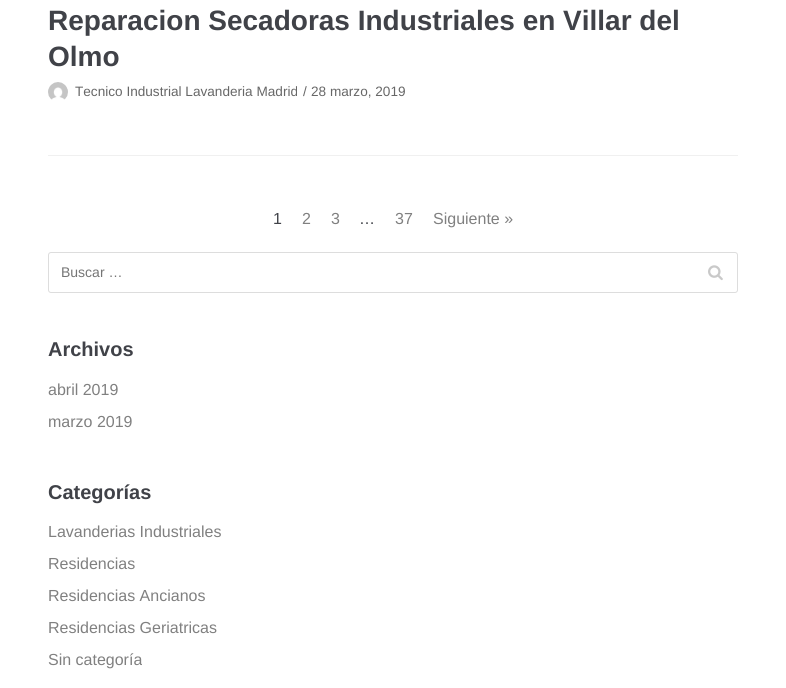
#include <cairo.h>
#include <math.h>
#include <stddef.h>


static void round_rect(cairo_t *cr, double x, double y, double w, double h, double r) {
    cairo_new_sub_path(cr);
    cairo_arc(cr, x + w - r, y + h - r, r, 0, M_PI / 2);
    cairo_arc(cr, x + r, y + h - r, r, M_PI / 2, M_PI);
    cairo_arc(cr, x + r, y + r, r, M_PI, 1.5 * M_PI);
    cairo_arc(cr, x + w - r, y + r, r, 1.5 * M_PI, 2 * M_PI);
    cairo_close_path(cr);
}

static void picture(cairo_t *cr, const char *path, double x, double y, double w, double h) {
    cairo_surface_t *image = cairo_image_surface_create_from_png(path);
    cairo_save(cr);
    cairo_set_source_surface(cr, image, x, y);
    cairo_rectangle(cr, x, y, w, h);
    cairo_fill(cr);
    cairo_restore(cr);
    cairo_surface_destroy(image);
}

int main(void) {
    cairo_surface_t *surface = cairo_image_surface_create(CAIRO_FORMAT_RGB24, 786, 688);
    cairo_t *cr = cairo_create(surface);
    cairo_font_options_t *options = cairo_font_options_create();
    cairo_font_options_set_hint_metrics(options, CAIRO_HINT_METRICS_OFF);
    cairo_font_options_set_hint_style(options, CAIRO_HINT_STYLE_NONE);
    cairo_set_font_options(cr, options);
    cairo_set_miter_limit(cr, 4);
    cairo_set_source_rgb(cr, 1, 1, 1);
    cairo_paint(cr);
    cairo_set_source_rgb(cr, 0.941, 0.941, 0.941);
    cairo_rectangle(cr, 48, 155, 690, 1);
    cairo_fill(cr);
    cairo_select_font_face(cr, "Liberation Sans", CAIRO_FONT_SLANT_NORMAL, CAIRO_FONT_WEIGHT_BOLD);
    cairo_set_font_size(cr, 28);
    cairo_set_source_rgb(cr, 0.251, 0.259, 0.282);
    cairo_move_to(cr, 48, 30);
    cairo_show_text(cr, "Reparacion Secadoras Industriales en Villar del");
    cairo_move_to(cr, 48, 66);
    cairo_show_text(cr, "Olmo");
    picture(cr, "img1.png", 48, 82, 20, 18);
    cairo_select_font_face(cr, "Liberation Sans", CAIRO_FONT_SLANT_NORMAL, CAIRO_FONT_WEIGHT_NORMAL);
    cairo_set_font_size(cr, 13.6);
    cairo_set_source_rgb(cr, 0.404, 0.404, 0.404);
    cairo_move_to(cr, 75, 96);
    cairo_show_text(cr, "Tecnico Industrial Lavanderia Madrid");
    cairo_move_to(cr, 303, 96);
    cairo_show_text(cr, "/");
    cairo_move_to(cr, 311, 96);
    cairo_show_text(cr, "28 marzo, 2019");
    cairo_set_font_size(cr, 16);
    cairo_set_source_rgb(cr, 0.251, 0.259, 0.282);
    cairo_move_to(cr, 273, 224);
    cairo_show_text(cr, "1");
    cairo_set_source_rgb(cr, 0.502, 0.502, 0.502);
    cairo_move_to(cr, 302, 224);
    cairo_show_text(cr, "2");
    cairo_move_to(cr, 331, 224);
    cairo_show_text(cr, "3");
    cairo_set_source_rgb(cr, 0.251, 0.259, 0.282);
    cairo_move_to(cr, 359, 224);
    cairo_show_text(cr, "…");
    cairo_set_source_rgb(cr, 0.502, 0.502, 0.502);
    cairo_move_to(cr, 395, 224);
    cairo_show_text(cr, "37");
    cairo_move_to(cr, 433, 224);
    cairo_show_text(cr, "Siguiente »");
    round_rect(cr, 48.5, 252.5, 689, 40, 2.5);
    cairo_set_source_rgb(cr, 0.867, 0.867, 0.867);
    cairo_set_line_width(cr, 1);
    cairo_stroke(cr);
    cairo_set_font_size(cr, 14);
    cairo_set_source_rgb(cr, 0.459, 0.459, 0.459);
    cairo_move_to(cr, 61, 277);
    cairo_show_text(cr, "Buscar …");
    picture(cr, "img2.png", 708, 265, 15, 16);
    cairo_select_font_face(cr, "Liberation Sans", CAIRO_FONT_SLANT_NORMAL, CAIRO_FONT_WEIGHT_BOLD);
    cairo_set_font_size(cr, 20);
    cairo_set_source_rgb(cr, 0.251, 0.259, 0.282);
    cairo_move_to(cr, 48, 356);
    cairo_show_text(cr, "Archivos");
    cairo_select_font_face(cr, "Liberation Sans", CAIRO_FONT_SLANT_NORMAL, CAIRO_FONT_WEIGHT_NORMAL);
    cairo_set_font_size(cr, 16);
    cairo_set_source_rgb(cr, 0.502, 0.502, 0.502);
    cairo_move_to(cr, 48, 395);
    cairo_show_text(cr, "abril 2019");
    cairo_move_to(cr, 48, 427);
    cairo_show_text(cr, "marzo 2019");
    cairo_select_font_face(cr, "Liberation Sans", CAIRO_FONT_SLANT_NORMAL, CAIRO_FONT_WEIGHT_BOLD);
    cairo_set_font_size(cr, 20);
    cairo_set_source_rgb(cr, 0.251, 0.259, 0.282);
    cairo_move_to(cr, 48, 499);
    cairo_show_text(cr, "Categorías");
    cairo_select_font_face(cr, "Liberation Sans", CAIRO_FONT_SLANT_NORMAL, CAIRO_FONT_WEIGHT_NORMAL);
    cairo_set_font_size(cr, 16);
    cairo_set_source_rgb(cr, 0.502, 0.502, 0.502);
    cairo_move_to(cr, 48, 537);
    cairo_show_text(cr, "Lavanderias Industriales");
    cairo_move_to(cr, 48, 569);
    cairo_show_text(cr, "Residencias");
    cairo_move_to(cr, 48, 601);
    cairo_show_text(cr, "Residencias Ancianos");
    cairo_move_to(cr, 48, 633);
    cairo_show_text(cr, "Residencias Geriatricas");
    cairo_move_to(cr, 48, 665);
    cairo_show_text(cr, "Sin categoría");
    cairo_surface_write_to_png(surface, "page.png");
    cairo_font_options_destroy(options);
    cairo_destroy(cr);
    cairo_surface_destroy(surface);
    return 0;
}
